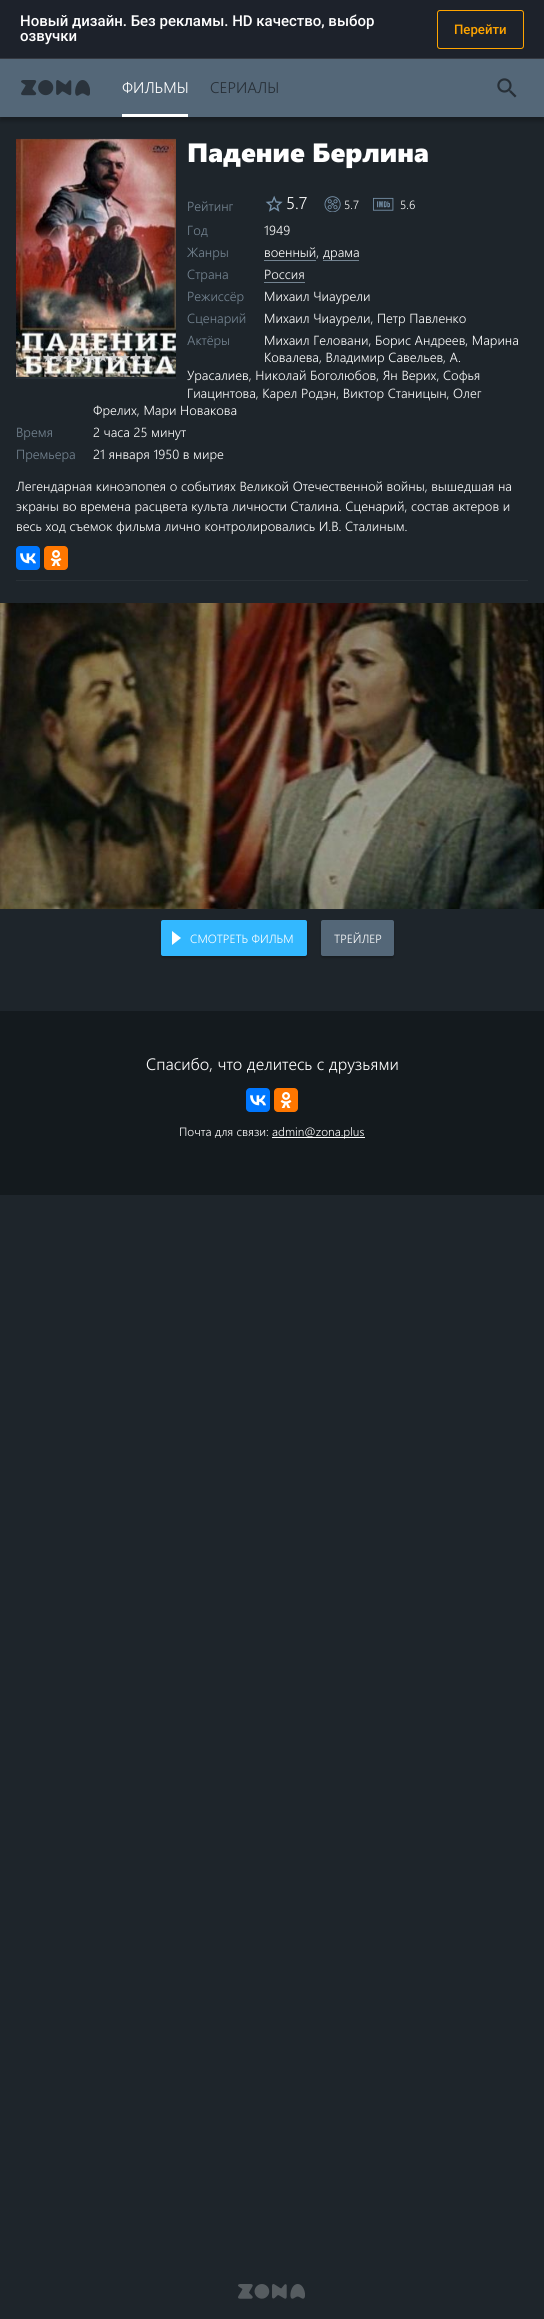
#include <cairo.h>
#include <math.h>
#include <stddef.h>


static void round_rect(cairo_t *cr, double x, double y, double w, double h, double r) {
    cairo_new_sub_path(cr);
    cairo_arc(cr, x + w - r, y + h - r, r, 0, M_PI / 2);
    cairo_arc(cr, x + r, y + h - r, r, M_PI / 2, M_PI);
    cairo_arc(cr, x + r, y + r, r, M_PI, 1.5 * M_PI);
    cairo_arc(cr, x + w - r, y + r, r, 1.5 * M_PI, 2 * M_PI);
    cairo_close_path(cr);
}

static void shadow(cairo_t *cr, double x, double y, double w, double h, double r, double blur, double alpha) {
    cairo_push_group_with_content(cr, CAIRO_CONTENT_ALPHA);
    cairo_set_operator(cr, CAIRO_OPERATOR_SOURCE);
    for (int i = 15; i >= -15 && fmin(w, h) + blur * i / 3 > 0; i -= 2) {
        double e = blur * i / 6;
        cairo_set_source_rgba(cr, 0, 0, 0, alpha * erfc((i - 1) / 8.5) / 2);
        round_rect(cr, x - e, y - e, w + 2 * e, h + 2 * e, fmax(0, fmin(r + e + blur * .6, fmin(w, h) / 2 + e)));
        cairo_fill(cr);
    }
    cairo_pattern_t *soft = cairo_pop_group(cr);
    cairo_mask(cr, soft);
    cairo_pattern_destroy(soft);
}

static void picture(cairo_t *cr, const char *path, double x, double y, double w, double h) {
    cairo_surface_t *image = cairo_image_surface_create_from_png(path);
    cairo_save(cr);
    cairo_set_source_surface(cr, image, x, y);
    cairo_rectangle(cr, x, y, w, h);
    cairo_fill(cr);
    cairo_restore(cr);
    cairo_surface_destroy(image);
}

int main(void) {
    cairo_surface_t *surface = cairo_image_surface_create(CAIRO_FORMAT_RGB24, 544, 2319);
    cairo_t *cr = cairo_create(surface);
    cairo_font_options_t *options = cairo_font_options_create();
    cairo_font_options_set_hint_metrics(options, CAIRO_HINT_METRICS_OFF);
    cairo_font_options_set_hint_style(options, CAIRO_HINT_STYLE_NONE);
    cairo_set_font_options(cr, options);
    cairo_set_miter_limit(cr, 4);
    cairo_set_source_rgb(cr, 0.118, 0.145, 0.169);
    cairo_paint(cr);
    cairo_set_source_rgb(cr, 0, 0, 0);
    shadow(cr, 0, 4, 544, 117, 0, 2, 0.24);
    cairo_set_source_rgb(cr, 0.329, 0.404, 0.471);
    cairo_rectangle(cr, 0, 59, 544, 58);
    cairo_fill(cr);
    cairo_set_source_rgb(cr, 0.114, 0.133, 0.169);
    cairo_rectangle(cr, 0, 0, 544, 58);
    cairo_fill(cr);
    cairo_set_source_rgb(cr, 0.204, 0.22, 0.251);
    cairo_rectangle(cr, 0, 58, 544, 1);
    cairo_fill(cr);
    cairo_select_font_face(cr, "Roboto Medium", CAIRO_FONT_SLANT_NORMAL, CAIRO_FONT_WEIGHT_NORMAL);
    cairo_set_font_size(cr, 15);
    cairo_set_source_rgb(cr, 1, 1, 1);
    cairo_move_to(cr, 20, 26);
    cairo_show_text(cr, "Новый дизайн. Без рекламы. HD качество, выбор");
    cairo_move_to(cr, 20, 41);
    cairo_show_text(cr, "озвучки");
    round_rect(cr, 437.5, 10.5, 86, 38, 2.5);
    cairo_set_source_rgb(cr, 1, 0.647, 0);
    cairo_set_line_width(cr, 1);
    cairo_stroke(cr);
    cairo_set_font_size(cr, 13.2);
    cairo_move_to(cr, 454, 34);
    cairo_show_text(cr, "Перейти");
    picture(cr, "img1.png", 21, 80, 69, 16);
    cairo_set_source_rgb(cr, 1, 1, 1);
    cairo_rectangle(cr, 122, 114, 66, 3);
    cairo_fill(cr);
    cairo_select_font_face(cr, "Segoe UI Light", CAIRO_FONT_SLANT_NORMAL, CAIRO_FONT_WEIGHT_NORMAL);
    cairo_set_font_size(cr, 15.5);
    cairo_move_to(cr, 122, 93);
    cairo_show_text(cr, "ФИЛЬМЫ");
    cairo_set_source_rgb(cr, 0.153, 0.184, 0.216);
    cairo_move_to(cr, 210, 93);
    cairo_show_text(cr, "СЕРИАЛЫ");
    picture(cr, "img2.png", 497, 78, 20, 20);
    cairo_select_font_face(cr, "Segoe UI Black", CAIRO_FONT_SLANT_NORMAL, CAIRO_FONT_WEIGHT_NORMAL);
    cairo_set_font_size(cr, 26.5);
    cairo_set_source_rgb(cr, 1, 1, 1);
    cairo_move_to(cr, 187, 162);
    cairo_show_text(cr, "Падение Берлина");
    cairo_select_font_face(cr, "Segoe UI Light", CAIRO_FONT_SLANT_NORMAL, CAIRO_FONT_WEIGHT_NORMAL);
    cairo_set_font_size(cr, 13.2);
    cairo_set_source_rgb(cr, 0.455, 0.518, 0.569);
    cairo_move_to(cr, 187, 211);
    cairo_show_text(cr, "Рейтинг");
    picture(cr, "img3.png", 265, 195, 18, 17);
    cairo_set_font_size(cr, 17);
    cairo_set_source_rgb(cr, 1, 1, 1);
    cairo_move_to(cr, 286, 209);
    cairo_show_text(cr, "5.7");
    picture(cr, "img4.png", 324, 196, 17, 16);
    cairo_set_font_size(cr, 11.9);
    cairo_move_to(cr, 344, 209);
    cairo_show_text(cr, "5.7");
    picture(cr, "img5.png", 373, 197, 21, 14);
    cairo_move_to(cr, 400, 209);
    cairo_show_text(cr, "5.6");
    cairo_set_font_size(cr, 13.2);
    cairo_set_source_rgb(cr, 0.455, 0.518, 0.569);
    cairo_move_to(cr, 187, 235);
    cairo_show_text(cr, "Год");
    cairo_set_source_rgb(cr, 1, 1, 1);
    cairo_move_to(cr, 264, 235);
    cairo_show_text(cr, "1949");
    cairo_set_source_rgb(cr, 0.455, 0.518, 0.569);
    cairo_move_to(cr, 187, 257);
    cairo_show_text(cr, "Жанры");
    cairo_set_source_rgb(cr, 1, 1, 1);
    cairo_move_to(cr, 264, 257);
    cairo_show_text(cr, "военный,");
    cairo_set_source_rgb(cr, 0.455, 0.518, 0.569);
    cairo_rectangle(cr, 264, 260, 52, 1);
    cairo_fill(cr);
    cairo_rectangle(cr, 323, 260, 36, 1);
    cairo_fill(cr);
    cairo_set_source_rgb(cr, 1, 1, 1);
    cairo_move_to(cr, 323, 257);
    cairo_show_text(cr, "драма");
    cairo_set_source_rgb(cr, 0.455, 0.518, 0.569);
    cairo_move_to(cr, 187, 279);
    cairo_show_text(cr, "Страна");
    cairo_set_source_rgb(cr, 1, 1, 1);
    cairo_move_to(cr, 264, 279);
    cairo_show_text(cr, "Россия");
    cairo_set_source_rgb(cr, 0.455, 0.518, 0.569);
    cairo_rectangle(cr, 264, 282, 41, 1);
    cairo_fill(cr);
    cairo_move_to(cr, 187, 301);
    cairo_show_text(cr, "Режиссёр");
    cairo_set_source_rgb(cr, 1, 1, 1);
    cairo_move_to(cr, 264, 301);
    cairo_show_text(cr, "Михаил Чиаурели");
    cairo_set_source_rgb(cr, 0.455, 0.518, 0.569);
    cairo_move_to(cr, 187, 323);
    cairo_show_text(cr, "Сценарий");
    cairo_set_source_rgb(cr, 1, 1, 1);
    cairo_move_to(cr, 264, 323);
    cairo_show_text(cr, "Михаил Чиаурели, Петр Павленко");
    cairo_move_to(cr, 264, 345);
    cairo_show_text(cr, "Михаил Геловани, Борис Андреев, Марина");
    cairo_move_to(cr, 264, 362);
    cairo_show_text(cr, "Ковалева, Владимир Савельев, А.");
    cairo_move_to(cr, 187, 380);
    cairo_show_text(cr, "Урасалиев, Николай Боголюбов, Ян Верих, Софья");
    cairo_move_to(cr, 187, 398);
    cairo_show_text(cr, "Гиацинтова, Карел Родэн, Виктор Станицын, Олег");
    cairo_move_to(cr, 93, 415);
    cairo_show_text(cr, "Фрелих, Мари Новакова");
    cairo_set_source_rgb(cr, 0.455, 0.518, 0.569);
    cairo_move_to(cr, 187, 345);
    cairo_show_text(cr, "Актёры");
    cairo_move_to(cr, 16, 437);
    cairo_show_text(cr, "Время");
    cairo_set_source_rgb(cr, 1, 1, 1);
    cairo_move_to(cr, 93, 437);
    cairo_show_text(cr, "2 часа 25 минут");
    cairo_set_source_rgb(cr, 0.455, 0.518, 0.569);
    cairo_move_to(cr, 16, 459);
    cairo_show_text(cr, "Премьера");
    cairo_set_source_rgb(cr, 1, 1, 1);
    cairo_move_to(cr, 93, 459);
    cairo_show_text(cr, "21 января 1950 в мире");
    cairo_move_to(cr, 16, 491);
    cairo_show_text(cr, "Легендарная киноэпопея о событиях Великой Отечественной войны, вышедшая на");
    cairo_move_to(cr, 16, 511);
    cairo_show_text(cr, "экраны во времена расцвета культа личности Сталина. Сценарий, состав актеров и");
    cairo_move_to(cr, 16, 531);
    cairo_show_text(cr, "весь ход съемок фильма лично контролировались И.В. Сталиным.");
    cairo_set_source_rgb(cr, 0, 0.467, 1);
    round_rect(cr, 16, 546, 24, 24, 4);
    cairo_fill(cr);
    picture(cr, "img6.png", 20, 553, 16, 11);
    cairo_set_source_rgb(cr, 1, 0.467, 0);
    round_rect(cr, 44, 546, 24, 24, 4);
    cairo_fill(cr);
    picture(cr, "img7.png", 50, 550, 12, 16);
    cairo_set_source_rgb(cr, 0.161, 0.188, 0.212);
    cairo_rectangle(cr, 16, 139, 160, 240);
    cairo_fill(cr);
    picture(cr, "img8.png", 16, 138, 160, 239);
    cairo_select_font_face(cr, "DejaVu Sans", CAIRO_FONT_SLANT_NORMAL, CAIRO_FONT_WEIGHT_NORMAL);
    cairo_set_source_rgb(cr, 0.8, 0.8, 0.8);
    cairo_move_to(cr, 42, 362);
    cairo_show_text(cr, "★");
    cairo_move_to(cr, 53, 362);
    cairo_show_text(cr, "★");
    cairo_move_to(cr, 64, 362);
    cairo_show_text(cr, "★");
    cairo_move_to(cr, 75, 362);
    cairo_show_text(cr, "★");
    cairo_move_to(cr, 86, 362);
    cairo_show_text(cr, "★");
    cairo_move_to(cr, 97, 362);
    cairo_show_text(cr, "★");
    cairo_move_to(cr, 108, 362);
    cairo_show_text(cr, "★");
    cairo_move_to(cr, 119, 362);
    cairo_show_text(cr, "★");
    cairo_move_to(cr, 130, 362);
    cairo_show_text(cr, "★");
    cairo_move_to(cr, 141, 362);
    cairo_show_text(cr, "★");
    cairo_set_source_rgb(cr, 0.161, 0.188, 0.212);
    cairo_rectangle(cr, 16, 580, 512, 1);
    cairo_fill(cr);
    picture(cr, "img9.png", 0, 603, 544, 306);
    cairo_set_source_rgb(cr, 0, 0, 0);
    shadow(cr, 161, 922, 146, 36, 2, 1, 0.24);
    cairo_set_source_rgb(cr, 0.2, 0.722, 1);
    round_rect(cr, 161, 920, 146, 36, 2);
    cairo_fill(cr);
    cairo_set_source_rgb(cr, 1, 1, 1);
    cairo_new_path(cr);
    cairo_move_to(cr, 172, 945);
    cairo_line_to(cr, 172, 931);
    cairo_line_to(cr, 181, 938);
    cairo_close_path(cr);
    cairo_fill(cr);
    cairo_select_font_face(cr, "Segoe UI Light", CAIRO_FONT_SLANT_NORMAL, CAIRO_FONT_WEIGHT_NORMAL);
    cairo_set_font_size(cr, 11.9);
    cairo_move_to(cr, 190, 943);
    cairo_show_text(cr, "СМОТРЕТЬ ФИЛЬМ");
    cairo_set_source_rgb(cr, 0, 0, 0);
    shadow(cr, 321, 922, 73, 36, 2, 1, 0.24);
    cairo_set_source_rgb(cr, 0.329, 0.404, 0.471);
    round_rect(cr, 321, 920, 73, 36, 2);
    cairo_fill(cr);
    cairo_set_source_rgb(cr, 1, 1, 1);
    cairo_move_to(cr, 334, 943);
    cairo_show_text(cr, "ТРЕЙЛЕР");
    cairo_set_source_rgb(cr, 0.082, 0.102, 0.118);
    cairo_rectangle(cr, 0, 1011, 544, 184);
    cairo_fill(cr);
    cairo_set_font_size(cr, 16.5);
    cairo_set_source_rgb(cr, 1, 1, 1);
    cairo_move_to(cr, 146, 1070);
    cairo_show_text(cr, "Спасибо, что делитесь с друзьями");
    cairo_set_source_rgb(cr, 0, 0.467, 1);
    round_rect(cr, 246, 1088, 24, 24, 4);
    cairo_fill(cr);
    picture(cr, "img6.png", 250, 1095, 16, 11);
    cairo_set_source_rgb(cr, 1, 0.467, 0);
    round_rect(cr, 274, 1088, 24, 24, 4);
    cairo_fill(cr);
    picture(cr, "img7.png", 280, 1092, 12, 16);
    cairo_set_font_size(cr, 12);
    cairo_set_source_rgb(cr, 1, 1, 1);
    cairo_move_to(cr, 179, 1136);
    cairo_show_text(cr, "Почта для связи:");
    cairo_rectangle(cr, 272, 1137, 93, 1);
    cairo_fill(cr);
    cairo_move_to(cr, 272, 1136);
    cairo_show_text(cr, "admin@zona.plus");
    picture(cr, "img10.png", 238, 2284, 67, 15);
    cairo_surface_write_to_png(surface, "page.png");
    cairo_font_options_destroy(options);
    cairo_destroy(cr);
    cairo_surface_destroy(surface);
    return 0;
}
